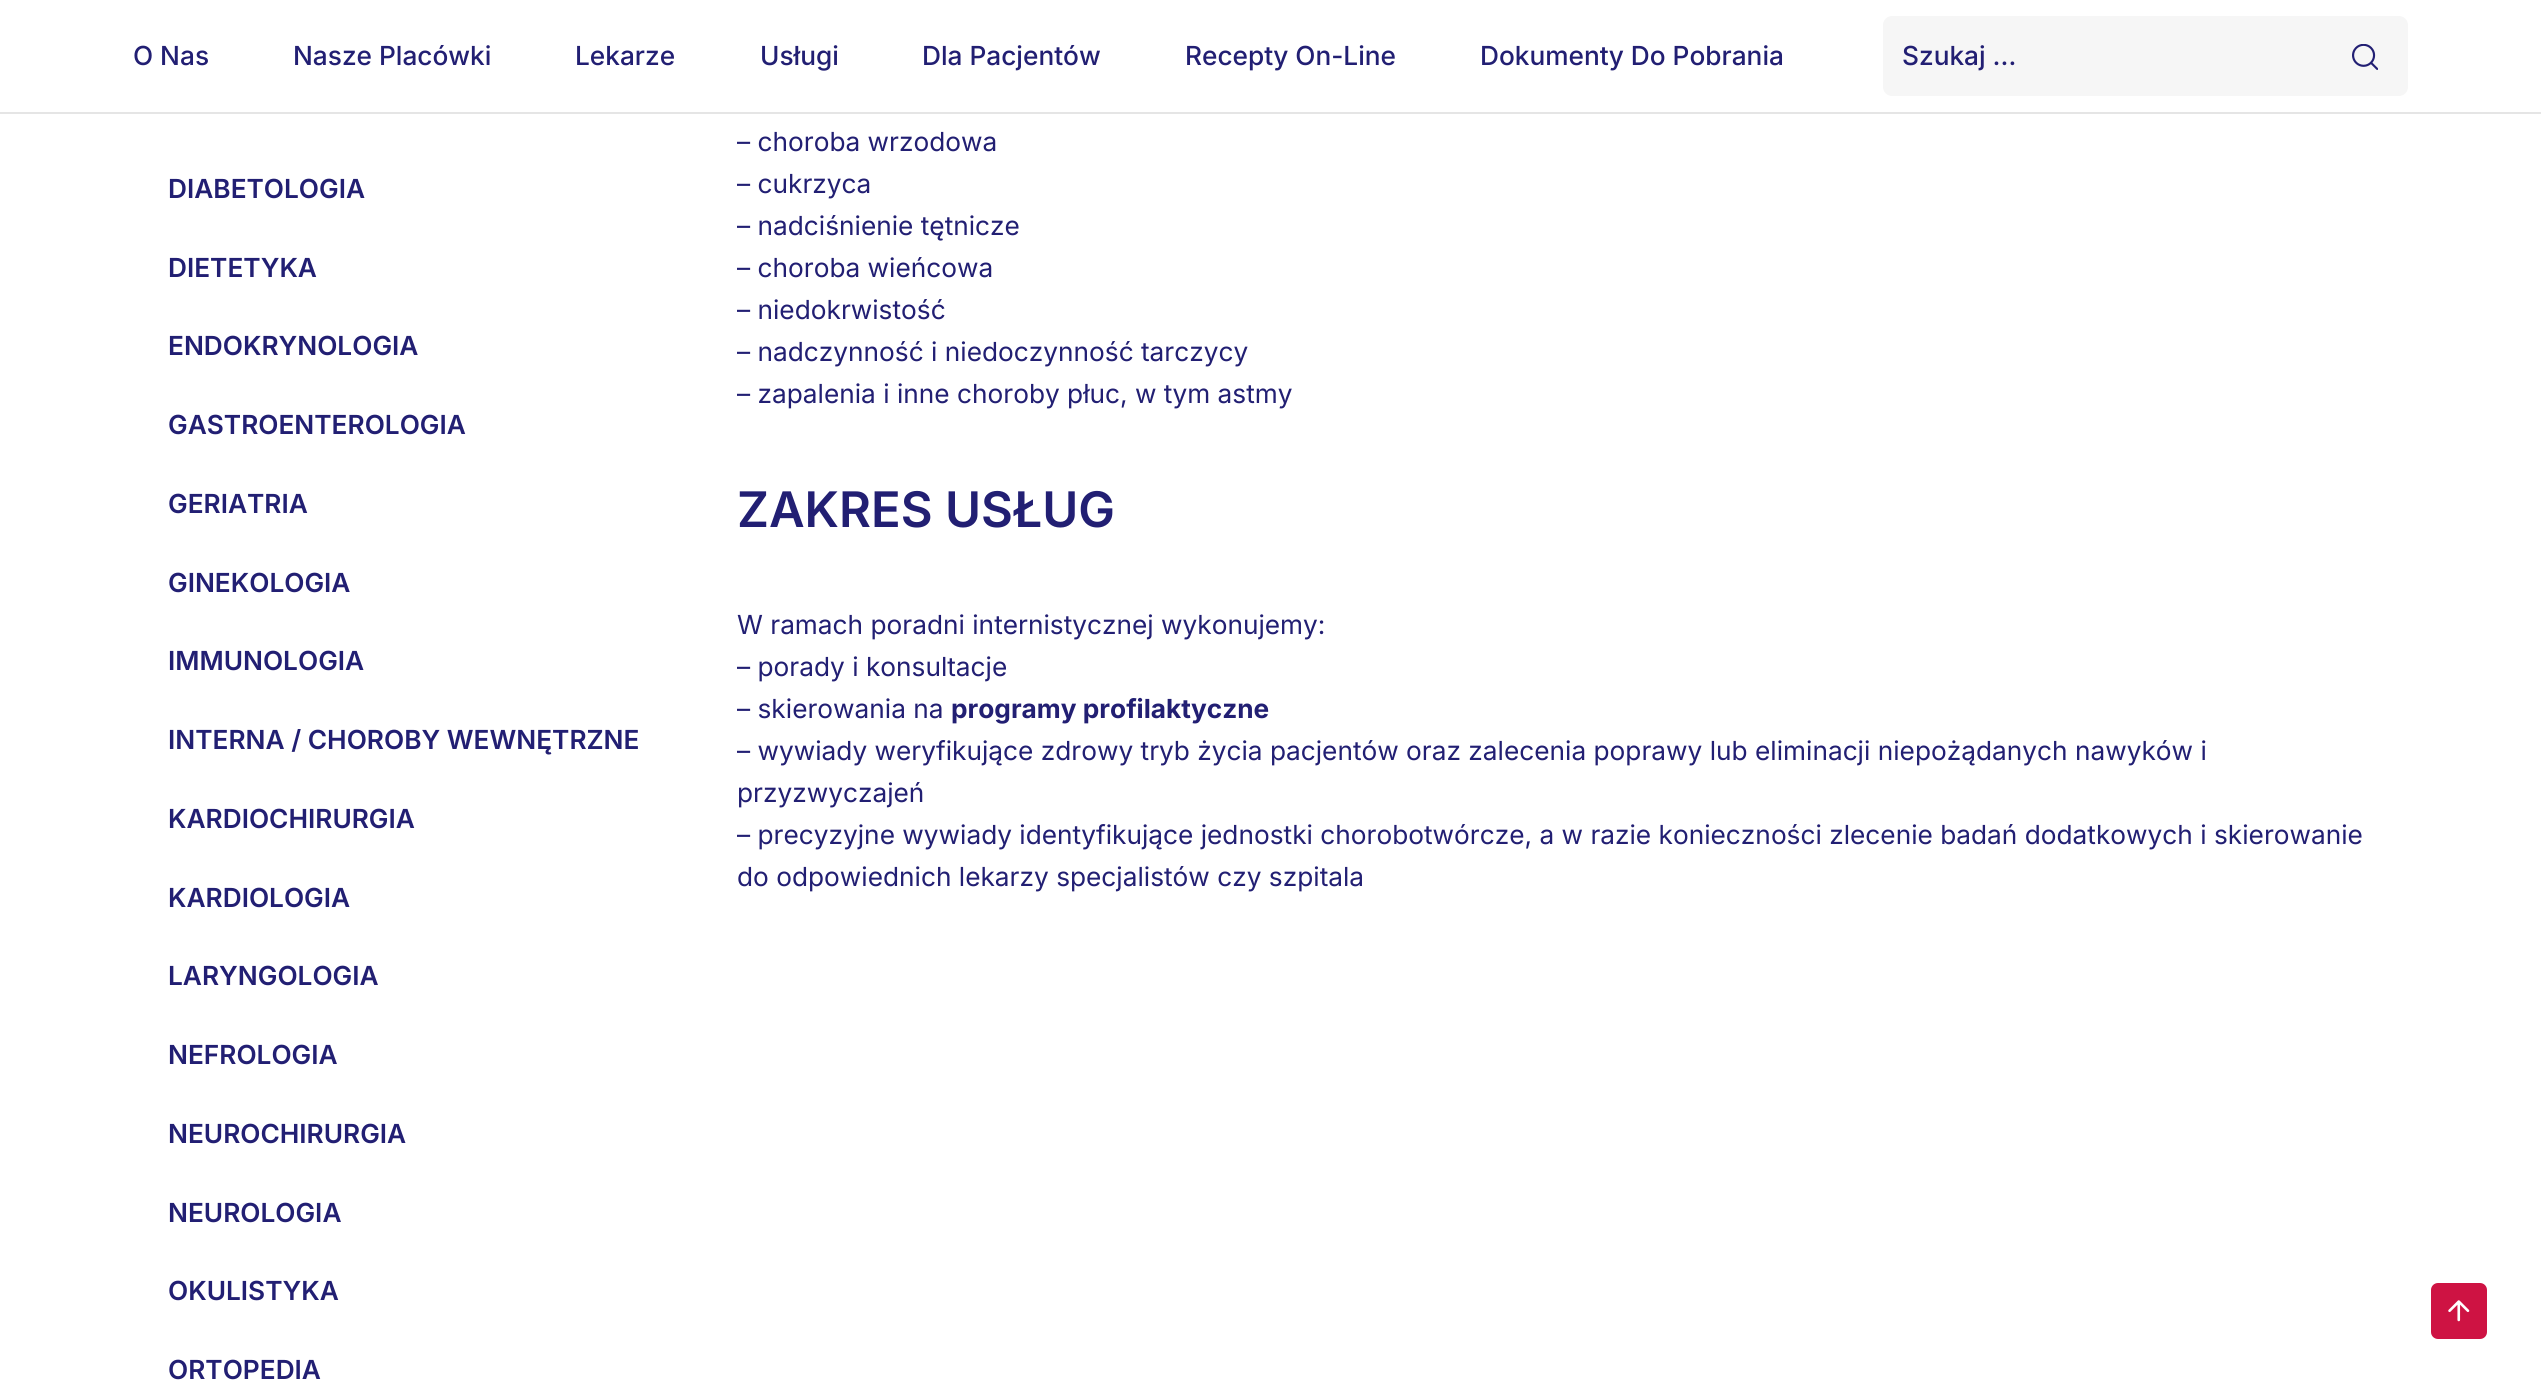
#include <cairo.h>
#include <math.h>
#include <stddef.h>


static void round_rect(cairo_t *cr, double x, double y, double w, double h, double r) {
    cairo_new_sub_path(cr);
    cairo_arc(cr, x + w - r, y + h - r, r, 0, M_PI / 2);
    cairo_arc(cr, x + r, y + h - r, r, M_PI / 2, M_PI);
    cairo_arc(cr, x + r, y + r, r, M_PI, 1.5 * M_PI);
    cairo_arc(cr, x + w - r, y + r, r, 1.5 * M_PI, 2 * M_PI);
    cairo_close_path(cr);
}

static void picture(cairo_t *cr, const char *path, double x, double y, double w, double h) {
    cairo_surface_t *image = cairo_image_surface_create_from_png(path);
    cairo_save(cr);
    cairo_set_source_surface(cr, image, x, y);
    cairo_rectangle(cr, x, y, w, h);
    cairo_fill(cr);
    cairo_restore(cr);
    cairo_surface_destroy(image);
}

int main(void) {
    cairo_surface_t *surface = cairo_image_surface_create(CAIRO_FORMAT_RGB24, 2541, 1392);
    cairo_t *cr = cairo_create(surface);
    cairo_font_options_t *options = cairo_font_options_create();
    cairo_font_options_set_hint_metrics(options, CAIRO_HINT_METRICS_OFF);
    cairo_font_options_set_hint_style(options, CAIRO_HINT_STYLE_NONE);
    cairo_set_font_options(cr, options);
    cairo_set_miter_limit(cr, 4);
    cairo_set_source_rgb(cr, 1, 1, 1);
    cairo_paint(cr);
    cairo_set_source_rgb(cr, 0.898, 0.898, 0.898);
    cairo_rectangle(cr, 0, 112, 2541, 2);
    cairo_fill(cr);
    cairo_select_font_face(cr, "Inter Medium", CAIRO_FONT_SLANT_NORMAL, CAIRO_FONT_WEIGHT_NORMAL);
    cairo_set_font_size(cr, 26.25);
    cairo_set_source_rgb(cr, 0.133, 0.122, 0.451);
    cairo_move_to(cr, 133, 65);
    cairo_show_text(cr, "O Nas");
    cairo_move_to(cr, 293, 65);
    cairo_show_text(cr, "Nasze Placówki");
    cairo_move_to(cr, 575, 65);
    cairo_show_text(cr, "Lekarze");
    cairo_move_to(cr, 760, 65);
    cairo_show_text(cr, "Usługi");
    cairo_move_to(cr, 922, 65);
    cairo_show_text(cr, "Dla Pacjentów");
    cairo_move_to(cr, 1185, 65);
    cairo_show_text(cr, "Recepty On-Line");
    cairo_move_to(cr, 1480, 65);
    cairo_show_text(cr, "Dokumenty Do Pobrania");
    cairo_set_source_rgb(cr, 0.961, 0.961, 0.961);
    round_rect(cr, 1883, 16, 525, 80, 9);
    cairo_fill(cr);
    cairo_set_source_rgb(cr, 0.133, 0.122, 0.451);
    cairo_move_to(cr, 1902, 65);
    cairo_show_text(cr, "Szukaj …");
    picture(cr, "img1.png", 2352, 44, 26, 26);
    cairo_select_font_face(cr, "Inter SemiBold", CAIRO_FONT_SLANT_NORMAL, CAIRO_FONT_WEIGHT_NORMAL);
    cairo_move_to(cr, 168, 198);
    cairo_show_text(cr, "DIABETOLOGIA");
    cairo_move_to(cr, 168, 277);
    cairo_show_text(cr, "DIETETYKA");
    cairo_move_to(cr, 168, 355);
    cairo_show_text(cr, "ENDOKRYNOLOGIA");
    cairo_move_to(cr, 168, 434);
    cairo_show_text(cr, "GASTROENTEROLOGIA");
    cairo_move_to(cr, 168, 513);
    cairo_show_text(cr, "GERIATRIA");
    cairo_move_to(cr, 168, 592);
    cairo_show_text(cr, "GINEKOLOGIA");
    cairo_move_to(cr, 168, 670);
    cairo_show_text(cr, "IMMUNOLOGIA");
    cairo_move_to(cr, 168, 749);
    cairo_show_text(cr, "INTERNA / CHOROBY WEWNĘTRZNE");
    cairo_move_to(cr, 168, 828);
    cairo_show_text(cr, "KARDIOCHIRURGIA");
    cairo_move_to(cr, 168, 907);
    cairo_show_text(cr, "KARDIOLOGIA");
    cairo_move_to(cr, 168, 985);
    cairo_show_text(cr, "LARYNGOLOGIA");
    cairo_move_to(cr, 168, 1064);
    cairo_show_text(cr, "NEFROLOGIA");
    cairo_move_to(cr, 168, 1143);
    cairo_show_text(cr, "NEUROCHIRURGIA");
    cairo_move_to(cr, 168, 1222);
    cairo_show_text(cr, "NEUROLOGIA");
    cairo_move_to(cr, 168, 1300);
    cairo_show_text(cr, "OKULISTYKA");
    cairo_move_to(cr, 168, 1379);
    cairo_show_text(cr, "ORTOPEDIA");
    cairo_select_font_face(cr, "Inter", CAIRO_FONT_SLANT_NORMAL, CAIRO_FONT_WEIGHT_NORMAL);
    cairo_move_to(cr, 737, 151);
    cairo_show_text(cr, "– choroba wrzodowa");
    cairo_move_to(cr, 737, 193);
    cairo_show_text(cr, "– cukrzyca");
    cairo_move_to(cr, 737, 235);
    cairo_show_text(cr, "– nadciśnienie tętnicze");
    cairo_move_to(cr, 737, 277);
    cairo_show_text(cr, "– choroba wieńcowa");
    cairo_move_to(cr, 737, 319);
    cairo_show_text(cr, "– niedokrwistość");
    cairo_move_to(cr, 737, 361);
    cairo_show_text(cr, "– nadczynność i niedoczynność tarczycy");
    cairo_move_to(cr, 737, 403);
    cairo_show_text(cr, "– zapalenia i inne choroby płuc, w tym astmy");
    cairo_select_font_face(cr, "Inter SemiBold", CAIRO_FONT_SLANT_NORMAL, CAIRO_FONT_WEIGHT_NORMAL);
    cairo_set_font_size(cr, 49);
    cairo_move_to(cr, 737, 527);
    cairo_show_text(cr, "ZAKRES USŁUG");
    cairo_select_font_face(cr, "Inter", CAIRO_FONT_SLANT_NORMAL, CAIRO_FONT_WEIGHT_NORMAL);
    cairo_set_font_size(cr, 26.25);
    cairo_move_to(cr, 737, 634);
    cairo_show_text(cr, "W ramach poradni internistycznej wykonujemy:");
    cairo_move_to(cr, 737, 676);
    cairo_show_text(cr, "– porady i konsultacje");
    cairo_move_to(cr, 737, 718);
    cairo_show_text(cr, "– skierowania na");
    cairo_select_font_face(cr, "Inter", CAIRO_FONT_SLANT_NORMAL, CAIRO_FONT_WEIGHT_BOLD);
    cairo_move_to(cr, 951, 718);
    cairo_show_text(cr, "programy profilaktyczne");
    cairo_select_font_face(cr, "Inter", CAIRO_FONT_SLANT_NORMAL, CAIRO_FONT_WEIGHT_NORMAL);
    cairo_move_to(cr, 737, 760);
    cairo_show_text(cr, "– wywiady weryfikujące zdrowy tryb życia pacjentów oraz zalecenia poprawy lub eliminacji niepożądanych nawyków i");
    cairo_move_to(cr, 737, 802);
    cairo_show_text(cr, "przyzwyczajeń");
    cairo_move_to(cr, 737, 844);
    cairo_show_text(cr, "– precyzyjne wywiady identyfikujące jednostki chorobotwórcze, a w razie konieczności zlecenie badań dodatkowych i skierowanie");
    cairo_move_to(cr, 737, 886);
    cairo_show_text(cr, "do odpowiednich lekarzy specjalistów czy szpitala");
    cairo_set_source_rgb(cr, 0.808, 0.078, 0.263);
    round_rect(cr, 2430, 1282, 58, 58, 8);
    cairo_fill_preserve(cr);
    cairo_set_source_rgb(cr, 1, 1, 1);
    cairo_stroke(cr);
    picture(cr, "img2.png", 2448, 1300, 22, 22);
    cairo_surface_write_to_png(surface, "page.png");
    cairo_font_options_destroy(options);
    cairo_destroy(cr);
    cairo_surface_destroy(surface);
    return 0;
}
